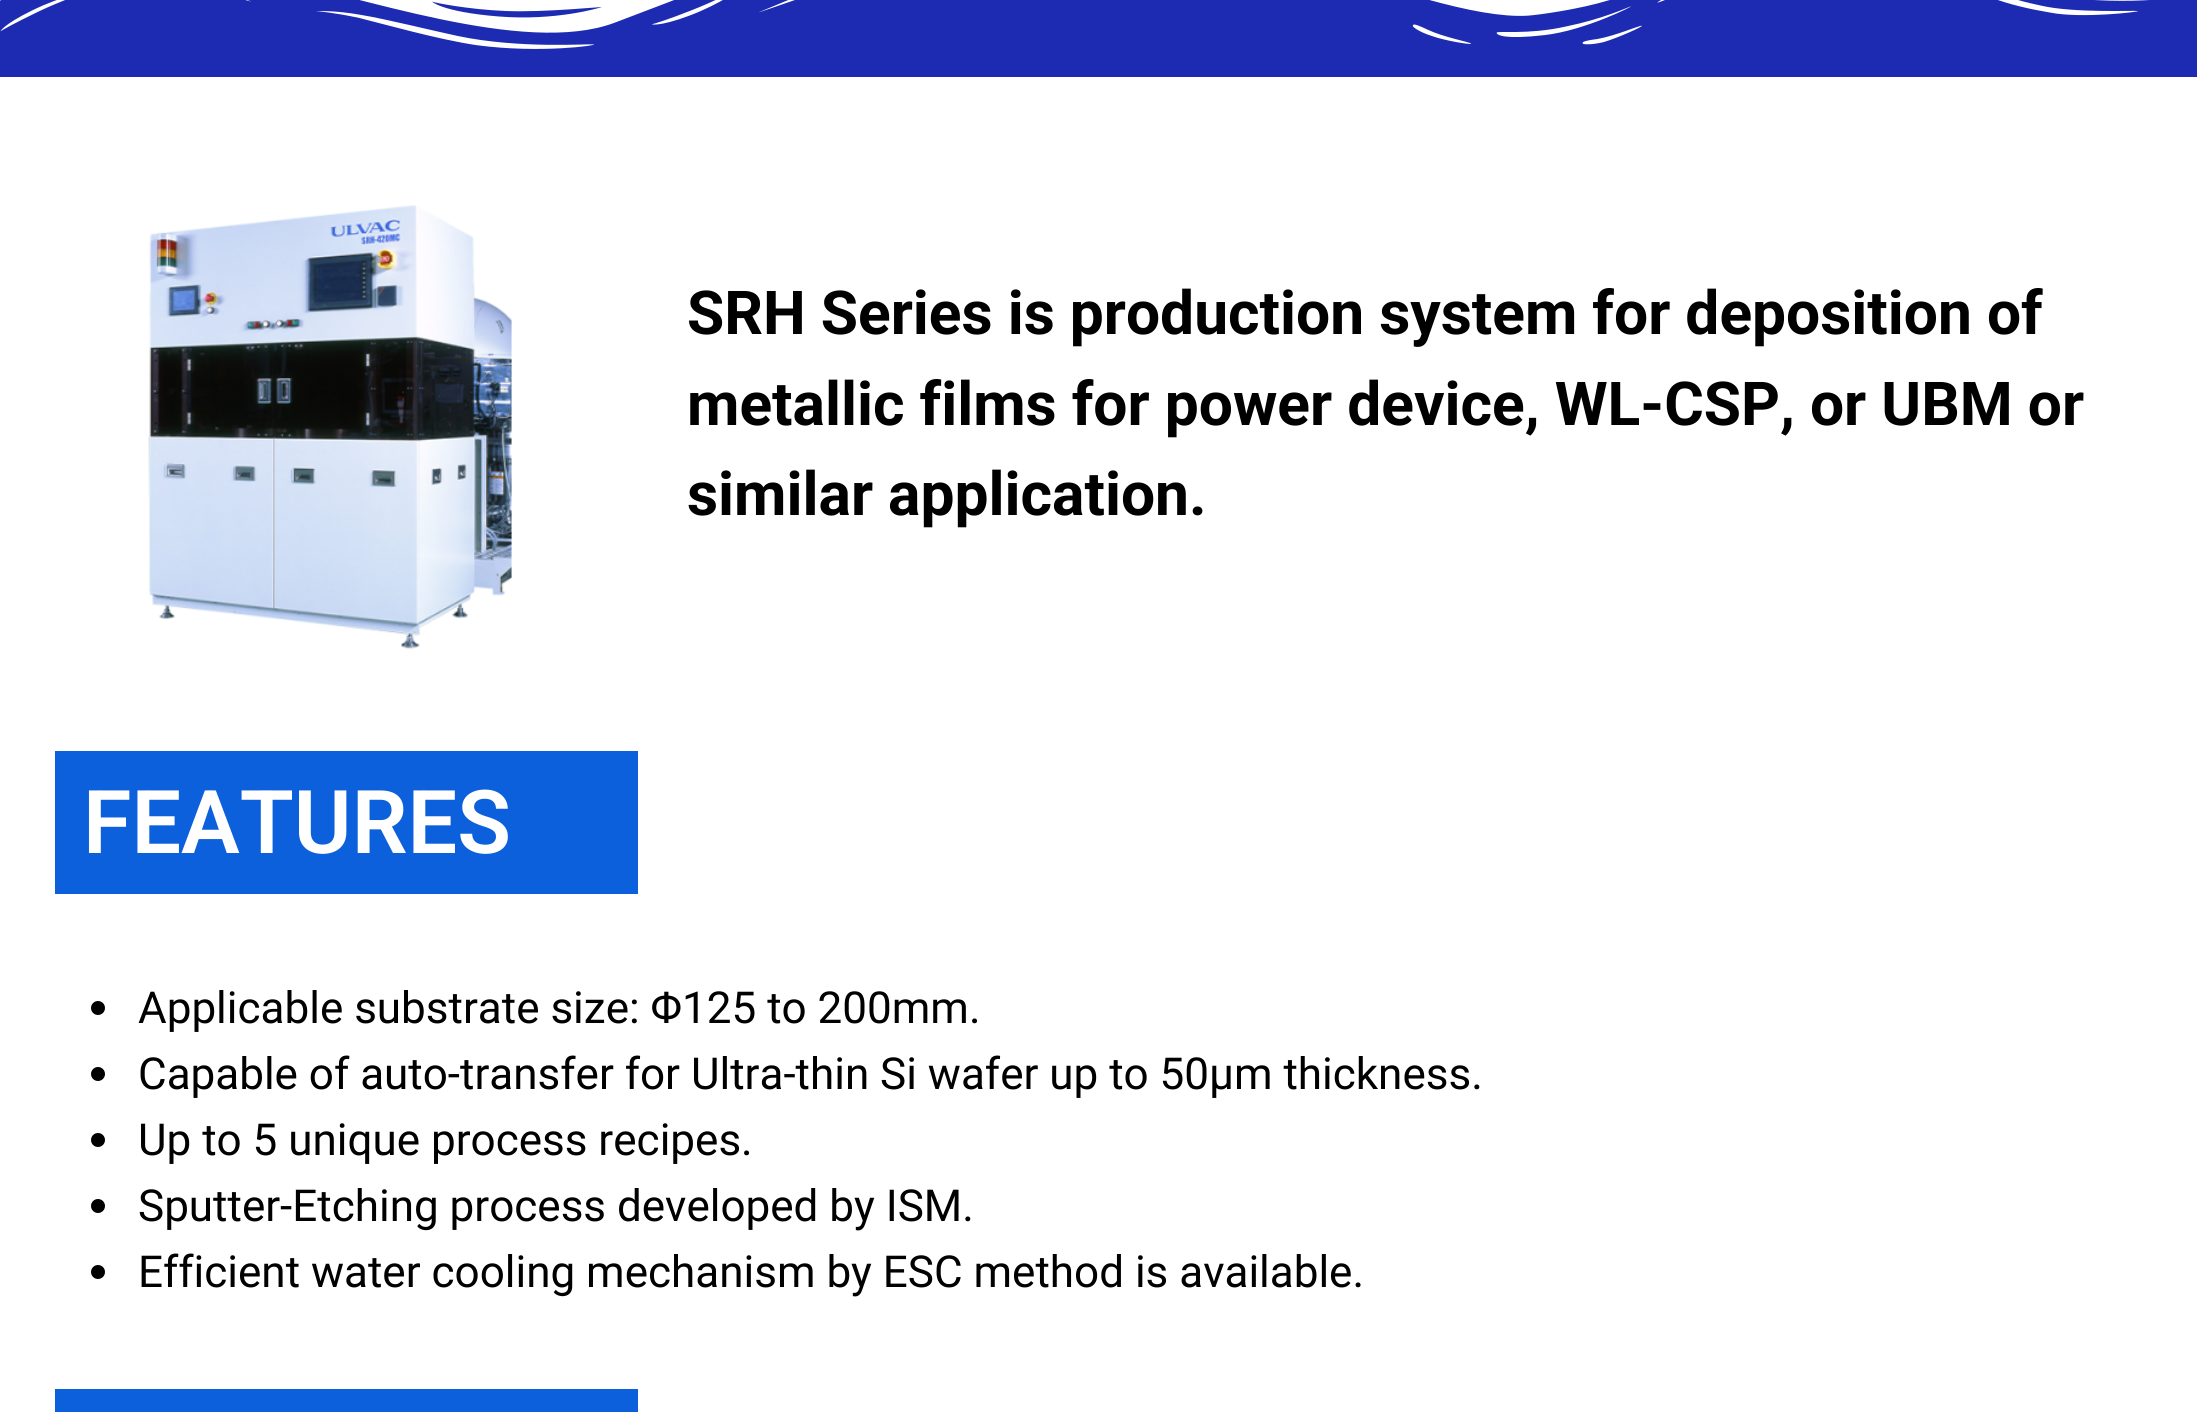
#include <cairo.h>
#include <math.h>
#include <stddef.h>


static void picture(cairo_t *cr, const char *path, double x, double y, double w, double h) {
    cairo_surface_t *image = cairo_image_surface_create_from_png(path);
    cairo_save(cr);
    cairo_set_source_surface(cr, image, x, y);
    cairo_rectangle(cr, x, y, w, h);
    cairo_fill(cr);
    cairo_restore(cr);
    cairo_surface_destroy(image);
}

int main(void) {
    cairo_surface_t *surface = cairo_image_surface_create(CAIRO_FORMAT_RGB24, 2197, 1412);
    cairo_t *cr = cairo_create(surface);
    cairo_font_options_t *options = cairo_font_options_create();
    cairo_font_options_set_hint_metrics(options, CAIRO_HINT_METRICS_OFF);
    cairo_font_options_set_hint_style(options, CAIRO_HINT_STYLE_NONE);
    cairo_set_font_options(cr, options);
    cairo_set_miter_limit(cr, 4);
    cairo_set_source_rgb(cr, 1, 1, 1);
    cairo_paint(cr);
    picture(cr, "img1.png", 0, 0, 2197, 77);
    picture(cr, "img2.png", 148, 205, 364, 445);
    cairo_select_font_face(cr, "Roboto", CAIRO_FONT_SLANT_NORMAL, CAIRO_FONT_WEIGHT_BOLD);
    cairo_set_font_size(cr, 60.5);
    cairo_set_source_rgb(cr, 0, 0, 0);
    cairo_move_to(cr, 687, 334);
    cairo_show_text(cr, "SRH Series is production system for deposition of");
    cairo_move_to(cr, 687, 425);
    cairo_show_text(cr, "metallic films for power device, WL-CSP, or UBM or");
    cairo_move_to(cr, 687, 515);
    cairo_show_text(cr, "similar application.");
    cairo_set_source_rgb(cr, 0.051, 0.376, 0.863);
    cairo_rectangle(cr, 55, 751, 583, 143);
    cairo_fill(cr);
    cairo_select_font_face(cr, "Roboto SemiBold", CAIRO_FONT_SLANT_NORMAL, CAIRO_FONT_WEIGHT_NORMAL);
    cairo_set_font_size(cr, 88);
    cairo_set_source_rgb(cr, 1, 1, 1);
    cairo_move_to(cr, 83, 853);
    cairo_show_text(cr, "FEATURES");
    cairo_set_source_rgb(cr, 0, 0, 0);
    cairo_new_path(cr);
    cairo_arc(cr, 98, 1008, 7, 0, 2 * M_PI);
    cairo_fill(cr);
    cairo_select_font_face(cr, "Roboto", CAIRO_FONT_SLANT_NORMAL, CAIRO_FONT_WEIGHT_NORMAL);
    cairo_set_font_size(cr, 44);
    cairo_move_to(cr, 138, 1023);
    cairo_show_text(cr, "Applicable substrate size: Φ125 to 200mm.");
    cairo_new_path(cr);
    cairo_arc(cr, 98, 1074, 7, 0, 2 * M_PI);
    cairo_fill(cr);
    cairo_move_to(cr, 138, 1089);
    cairo_show_text(cr, "Capable of auto-transfer for Ultra-thin Si wafer up to 50μm thickness.");
    cairo_new_path(cr);
    cairo_arc(cr, 98, 1140, 7, 0, 2 * M_PI);
    cairo_fill(cr);
    cairo_move_to(cr, 138, 1155);
    cairo_show_text(cr, "Up to 5 unique process recipes.");
    cairo_new_path(cr);
    cairo_arc(cr, 98, 1206, 7, 0, 2 * M_PI);
    cairo_fill(cr);
    cairo_move_to(cr, 138, 1221);
    cairo_show_text(cr, "Sputter-Etching process developed by ISM.");
    cairo_new_path(cr);
    cairo_arc(cr, 98, 1272, 7, 0, 2 * M_PI);
    cairo_fill(cr);
    cairo_move_to(cr, 138, 1287);
    cairo_show_text(cr, "Efficient water cooling mechanism by ESC method is available.");
    cairo_set_source_rgb(cr, 0.051, 0.376, 0.863);
    cairo_rectangle(cr, 55, 1389, 583, 23);
    cairo_fill(cr);
    cairo_surface_write_to_png(surface, "page.png");
    cairo_font_options_destroy(options);
    cairo_destroy(cr);
    cairo_surface_destroy(surface);
    return 0;
}
